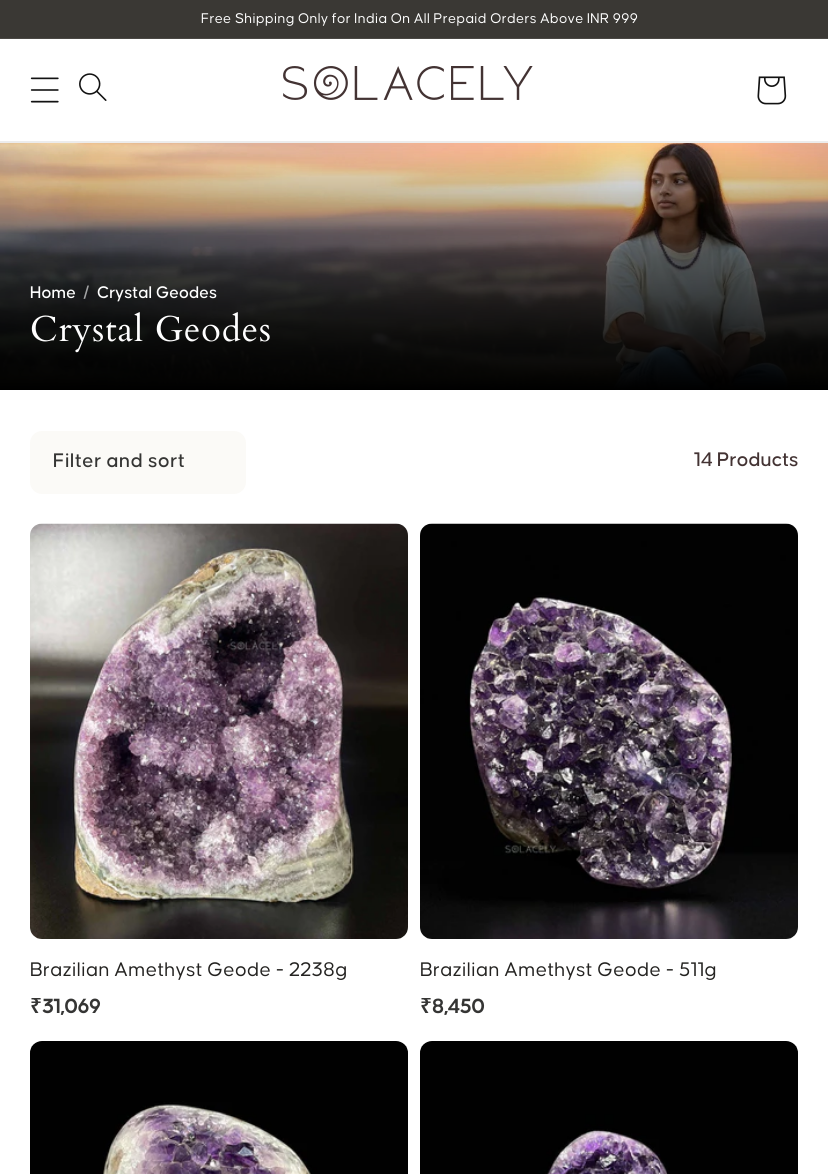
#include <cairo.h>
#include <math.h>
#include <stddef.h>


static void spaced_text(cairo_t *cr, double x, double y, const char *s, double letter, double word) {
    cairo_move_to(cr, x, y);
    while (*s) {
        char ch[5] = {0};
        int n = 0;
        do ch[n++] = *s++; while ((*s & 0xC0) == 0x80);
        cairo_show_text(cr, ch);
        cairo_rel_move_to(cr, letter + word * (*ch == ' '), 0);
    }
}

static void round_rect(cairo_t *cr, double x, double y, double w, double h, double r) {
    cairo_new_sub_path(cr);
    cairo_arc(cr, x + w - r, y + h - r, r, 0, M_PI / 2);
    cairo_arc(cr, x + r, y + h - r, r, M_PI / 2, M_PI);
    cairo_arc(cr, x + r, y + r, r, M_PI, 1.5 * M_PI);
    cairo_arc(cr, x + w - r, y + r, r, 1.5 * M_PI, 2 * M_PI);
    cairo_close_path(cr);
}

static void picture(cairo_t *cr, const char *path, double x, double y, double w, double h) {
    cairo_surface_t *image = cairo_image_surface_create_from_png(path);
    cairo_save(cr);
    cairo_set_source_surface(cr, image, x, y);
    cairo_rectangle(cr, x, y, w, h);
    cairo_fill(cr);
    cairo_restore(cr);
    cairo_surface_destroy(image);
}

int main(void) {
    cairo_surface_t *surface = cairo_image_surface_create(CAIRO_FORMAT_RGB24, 828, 1174);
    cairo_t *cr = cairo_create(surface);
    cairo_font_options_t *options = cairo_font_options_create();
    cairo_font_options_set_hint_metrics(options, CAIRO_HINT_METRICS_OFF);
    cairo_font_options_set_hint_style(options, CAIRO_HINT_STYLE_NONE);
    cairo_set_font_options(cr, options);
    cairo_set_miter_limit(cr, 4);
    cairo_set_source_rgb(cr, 1, 1, 1);
    cairo_paint(cr);
    cairo_set_source_rgb(cr, 0.227, 0.22, 0.204);
    cairo_rectangle(cr, 0, 0, 828, 38);
    cairo_fill(cr);
    cairo_set_source_rgb(cr, 0.29, 0.282, 0.267);
    cairo_rectangle(cr, 0, 38, 828, 1);
    cairo_fill(cr);
    cairo_select_font_face(cr, "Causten", CAIRO_FONT_SLANT_NORMAL, CAIRO_FONT_WEIGHT_NORMAL);
    cairo_set_font_size(cr, 15);
    cairo_set_source_rgb(cr, 1, 1, 1);
    spaced_text(cr, 201, 23, "Free Shipping Only for India On All Prepaid Orders Above INR 999", 0.3, 0);
    cairo_set_source_rgb(cr, 0.925, 0.925, 0.925);
    cairo_rectangle(cr, 0, 141, 828, 2);
    cairo_fill(cr);
    picture(cr, "img1.png", 30, 77, 29, 26);
    picture(cr, "img2.png", 79, 73, 28, 28);
    picture(cr, "img3.png", 283, 66, 250, 34);
    picture(cr, "img4.png", 757, 76, 30, 29);
    picture(cr, "img5.png", 0, 143, 828, 247);
    cairo_select_font_face(cr, "Causten Medium", CAIRO_FONT_SLANT_NORMAL, CAIRO_FONT_WEIGHT_NORMAL);
    cairo_set_font_size(cr, 18);
    cairo_set_source_rgb(cr, 1, 1, 1);
    cairo_move_to(cr, 30, 298);
    cairo_show_text(cr, "Home");
    cairo_set_source_rgb(cr, 0.635, 0.639, 0.643);
    cairo_move_to(cr, 83, 298);
    cairo_show_text(cr, "/");
    cairo_set_source_rgb(cr, 1, 1, 1);
    cairo_move_to(cr, 97, 298);
    cairo_show_text(cr, "Crystal Geodes");
    cairo_select_font_face(cr, "Cardo", CAIRO_FONT_SLANT_NORMAL, CAIRO_FONT_WEIGHT_NORMAL);
    cairo_set_font_size(cr, 36);
    spaced_text(cr, 30, 341, "Crystal Geodes", 0.9, 0);
    cairo_set_source_rgb(cr, 0.984, 0.98, 0.965);
    round_rect(cr, 30, 431, 216, 63, 12);
    cairo_fill(cr);
    cairo_select_font_face(cr, "Causten Medium", CAIRO_FONT_SLANT_NORMAL, CAIRO_FONT_WEIGHT_NORMAL);
    cairo_set_font_size(cr, 21);
    cairo_set_source_rgb(cr, 0.208, 0.208, 0.204);
    spaced_text(cr, 53, 467, "Filter and sort", 0.5, 0);
    cairo_set_source_rgb(cr, 0.263, 0.2, 0.2);
    cairo_move_to(cr, 694, 466);
    cairo_show_text(cr, "14 Products");
    picture(cr, "img6.png", 30, 523, 378, 416);
    cairo_select_font_face(cr, "Causten", CAIRO_FONT_SLANT_NORMAL, CAIRO_FONT_WEIGHT_NORMAL);
    cairo_set_source_rgb(cr, 0.141, 0.137, 0.129);
    spaced_text(cr, 30, 976, "Brazilian Amethyst Geode - 2238g", 0.3, 0);
    cairo_select_font_face(cr, "Noto Sans SemiBold", CAIRO_FONT_SLANT_NORMAL, CAIRO_FONT_WEIGHT_NORMAL);
    cairo_set_source_rgb(cr, 0.208, 0.208, 0.204);
    cairo_move_to(cr, 30, 1013);
    cairo_show_text(cr, "₹");
    cairo_select_font_face(cr, "Causten", CAIRO_FONT_SLANT_NORMAL, CAIRO_FONT_WEIGHT_BOLD);
    cairo_move_to(cr, 42, 1013);
    cairo_show_text(cr, "31,069");
    picture(cr, "img7.png", 420, 523, 378, 416);
    cairo_select_font_face(cr, "Causten", CAIRO_FONT_SLANT_NORMAL, CAIRO_FONT_WEIGHT_NORMAL);
    cairo_set_source_rgb(cr, 0.141, 0.137, 0.129);
    spaced_text(cr, 420, 976, "Brazilian Amethyst Geode - 511g", 0.3, 0);
    cairo_select_font_face(cr, "Noto Sans SemiBold", CAIRO_FONT_SLANT_NORMAL, CAIRO_FONT_WEIGHT_NORMAL);
    cairo_set_source_rgb(cr, 0.208, 0.208, 0.204);
    cairo_move_to(cr, 420, 1013);
    cairo_show_text(cr, "₹");
    cairo_select_font_face(cr, "Causten", CAIRO_FONT_SLANT_NORMAL, CAIRO_FONT_WEIGHT_BOLD);
    cairo_move_to(cr, 432, 1013);
    cairo_show_text(cr, "8,450");
    picture(cr, "img8.png", 30, 1041, 378, 133);
    picture(cr, "img9.png", 420, 1041, 378, 133);
    cairo_surface_write_to_png(surface, "page.png");
    cairo_font_options_destroy(options);
    cairo_destroy(cr);
    cairo_surface_destroy(surface);
    return 0;
}
